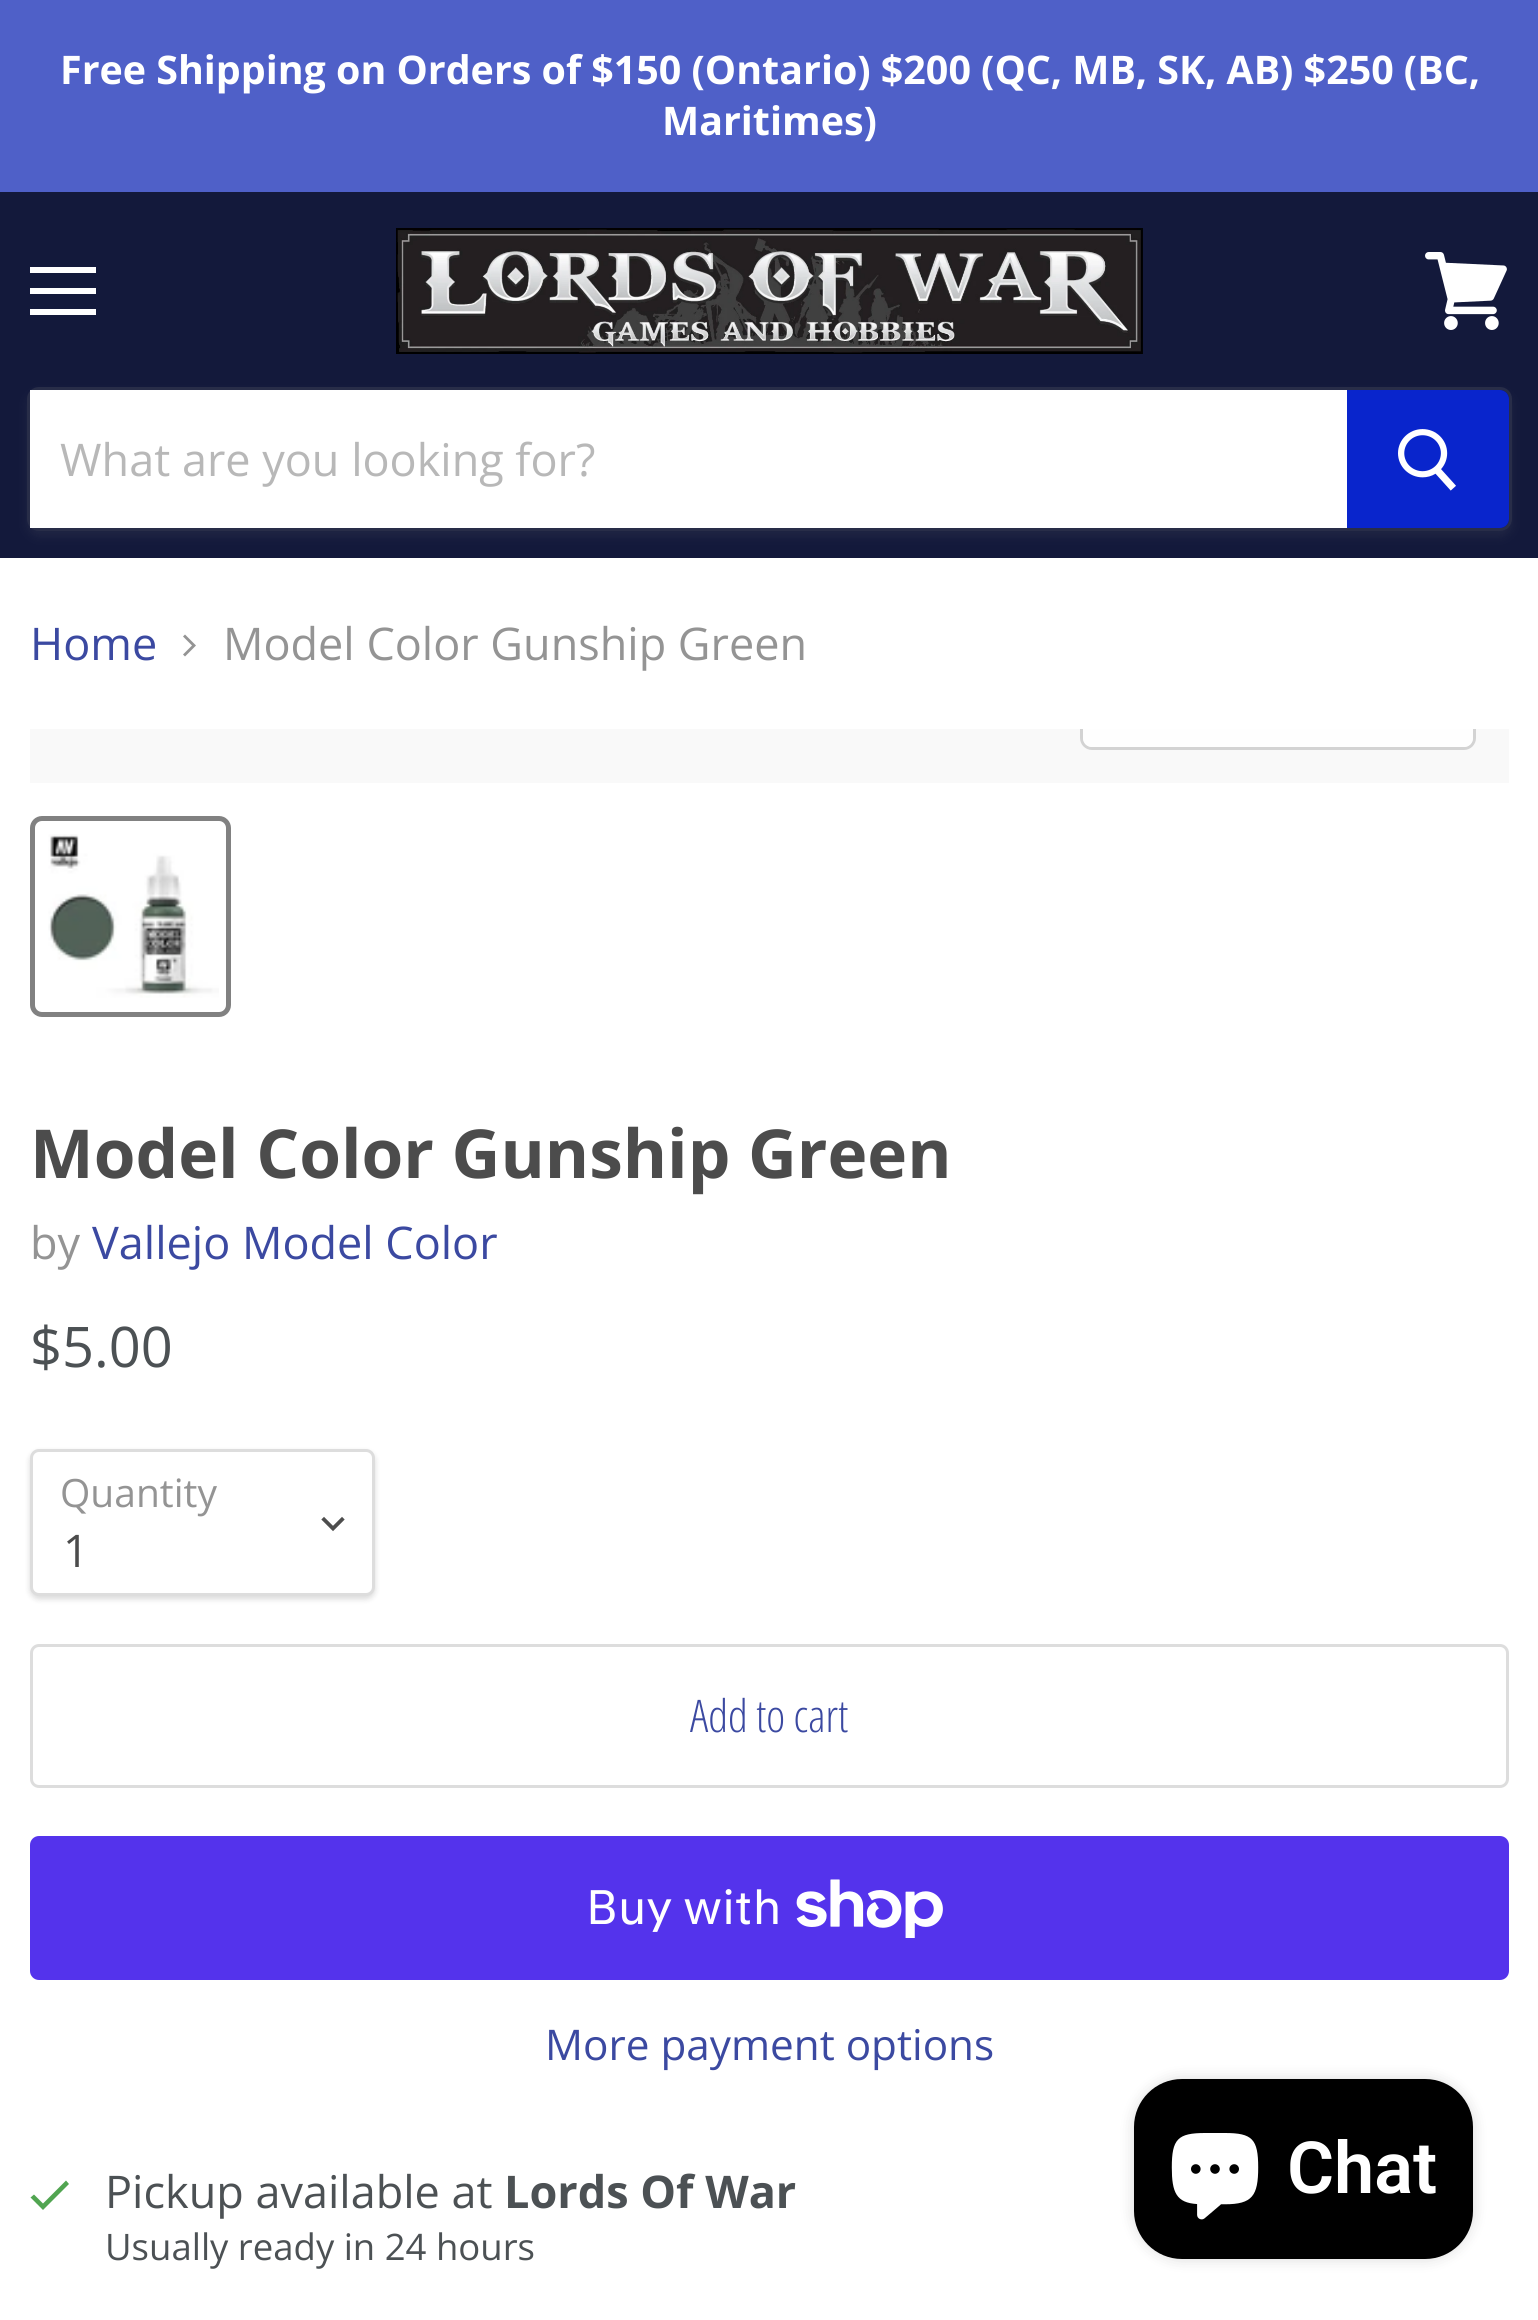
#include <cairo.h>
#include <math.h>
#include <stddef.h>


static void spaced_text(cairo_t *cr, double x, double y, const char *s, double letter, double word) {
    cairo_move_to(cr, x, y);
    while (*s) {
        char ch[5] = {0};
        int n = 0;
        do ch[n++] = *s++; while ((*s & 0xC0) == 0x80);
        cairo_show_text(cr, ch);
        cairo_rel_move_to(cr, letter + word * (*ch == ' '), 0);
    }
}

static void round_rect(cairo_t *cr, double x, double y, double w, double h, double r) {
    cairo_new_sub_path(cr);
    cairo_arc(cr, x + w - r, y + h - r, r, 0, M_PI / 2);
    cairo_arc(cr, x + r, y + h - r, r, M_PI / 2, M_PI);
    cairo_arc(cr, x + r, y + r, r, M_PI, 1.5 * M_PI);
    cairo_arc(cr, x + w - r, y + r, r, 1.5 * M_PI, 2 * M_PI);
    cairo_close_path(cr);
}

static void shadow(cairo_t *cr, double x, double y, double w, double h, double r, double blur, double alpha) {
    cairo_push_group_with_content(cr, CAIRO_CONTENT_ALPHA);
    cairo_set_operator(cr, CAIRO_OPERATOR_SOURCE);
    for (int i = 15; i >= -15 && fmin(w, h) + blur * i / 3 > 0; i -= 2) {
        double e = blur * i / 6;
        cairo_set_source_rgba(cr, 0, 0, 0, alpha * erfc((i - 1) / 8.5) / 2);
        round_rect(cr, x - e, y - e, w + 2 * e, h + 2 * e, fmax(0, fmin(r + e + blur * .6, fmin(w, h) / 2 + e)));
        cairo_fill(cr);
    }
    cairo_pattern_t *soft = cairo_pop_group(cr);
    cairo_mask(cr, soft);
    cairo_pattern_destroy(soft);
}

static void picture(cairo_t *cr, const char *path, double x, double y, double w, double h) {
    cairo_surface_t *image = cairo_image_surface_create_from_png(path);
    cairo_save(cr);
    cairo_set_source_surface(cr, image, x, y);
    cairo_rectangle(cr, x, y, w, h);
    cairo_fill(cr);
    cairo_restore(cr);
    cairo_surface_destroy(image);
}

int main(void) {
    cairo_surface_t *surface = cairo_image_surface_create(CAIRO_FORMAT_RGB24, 1538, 2320);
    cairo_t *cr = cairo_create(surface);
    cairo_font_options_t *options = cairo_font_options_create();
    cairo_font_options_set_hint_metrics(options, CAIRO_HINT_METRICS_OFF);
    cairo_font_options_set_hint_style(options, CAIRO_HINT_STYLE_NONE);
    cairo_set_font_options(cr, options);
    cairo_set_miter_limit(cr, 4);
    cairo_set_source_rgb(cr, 1, 1, 1);
    cairo_paint(cr);
    cairo_set_source_rgb(cr, 0.31, 0.376, 0.784);
    cairo_rectangle(cr, 0, 0, 1538, 192);
    cairo_fill(cr);
    cairo_select_font_face(cr, "Open Sans", CAIRO_FONT_SLANT_NORMAL, CAIRO_FONT_WEIGHT_BOLD);
    cairo_set_font_size(cr, 39.4);
    cairo_set_source_rgb(cr, 1, 1, 1);
    spaced_text(cr, 60, 84, "Free Shipping on Orders of $150 (Ontario) $200 (QC, MB, SK, AB) $250 (BC,", 0, -0.1);
    cairo_move_to(cr, 662, 135);
    cairo_show_text(cr, "Maritimes)");
    cairo_set_source_rgb(cr, 0.078, 0.098, 0.231);
    cairo_rectangle(cr, 0, 192, 1538, 366);
    cairo_fill(cr);
    cairo_set_source_rgb(cr, 1, 1, 1);
    cairo_rectangle(cr, 30, 267, 66, 6);
    cairo_fill(cr);
    cairo_rectangle(cr, 30, 288, 66, 6);
    cairo_fill(cr);
    cairo_rectangle(cr, 30, 309, 66, 6);
    cairo_fill(cr);
    picture(cr, "img1.png", 1425, 252, 82, 78);
    picture(cr, "img2.png", 396, 228, 747, 126);
    cairo_save(cr);
    cairo_set_fill_rule(cr, CAIRO_FILL_RULE_EVEN_ODD);
    cairo_new_path(cr);
    cairo_move_to(cr, 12, 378);
    cairo_line_to(cr, 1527, 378);
    cairo_line_to(cr, 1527, 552);
    cairo_line_to(cr, 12, 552);
    cairo_close_path(cr);
    cairo_move_to(cr, 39, 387);
    cairo_line_to(cr, 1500, 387);
    cairo_curve_to(cr, 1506.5, 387, 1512, 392.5, 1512, 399);
    cairo_line_to(cr, 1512, 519);
    cairo_curve_to(cr, 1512, 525.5, 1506.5, 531, 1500, 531);
    cairo_line_to(cr, 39, 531);
    cairo_curve_to(cr, 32.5, 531, 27, 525.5, 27, 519);
    cairo_line_to(cr, 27, 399);
    cairo_curve_to(cr, 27, 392.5, 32.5, 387, 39, 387);
    cairo_close_path(cr);
    cairo_clip(cr);
    cairo_set_source_rgb(cr, 0.502, 0.502, 0.502);
    shadow(cr, 27, 393, 1485, 144, 12, 4.5, 0.11);
    cairo_restore(cr);
    round_rect(cr, 28.5, 388.5, 1482, 141, 10.5);
    cairo_set_source_rgba(cr, 0.502, 0.502, 0.502, 0.2);
    cairo_set_line_width(cr, 3);
    cairo_stroke(cr);
    cairo_set_source_rgb(cr, 1, 1, 1);
    cairo_rectangle(cr, 30, 390, 1317, 138);
    cairo_fill(cr);
    cairo_select_font_face(cr, "Open Sans", CAIRO_FONT_SLANT_NORMAL, CAIRO_FONT_WEIGHT_NORMAL);
    cairo_set_font_size(cr, 45);
    cairo_set_source_rgb(cr, 0.722, 0.722, 0.722);
    cairo_move_to(cr, 60, 476);
    cairo_show_text(cr, "What are you looking for?");
    cairo_set_source_rgb(cr, 0.039, 0.145, 0.8);
    cairo_new_path(cr);
    cairo_move_to(cr, 1348.5, 391.5);
    cairo_line_to(cr, 1500, 391.5);
    cairo_curve_to(cr, 1504, 391.5, 1507.5, 395, 1507.5, 399);
    cairo_line_to(cr, 1507.5, 519);
    cairo_curve_to(cr, 1507.5, 523, 1504, 526.5, 1500, 526.5);
    cairo_line_to(cr, 1348.5, 526.5);
    cairo_close_path(cr);
    cairo_fill_preserve(cr);
    cairo_stroke(cr);
    picture(cr, "img3.png", 1398, 429, 58, 62);
    cairo_set_source_rgb(cr, 0.231, 0.286, 0.631);
    cairo_move_to(cr, 30, 660);
    cairo_show_text(cr, "Home");
    cairo_set_source_rgb(cr, 0.58, 0.58, 0.58);
    cairo_set_fill_rule(cr, CAIRO_FILL_RULE_EVEN_ODD);
    cairo_new_path(cr);
    cairo_move_to(cr, 183, 654.5);
    cairo_line_to(cr, 185, 656.5);
    cairo_line_to(cr, 196, 645.5);
    cairo_line_to(cr, 185, 634.5);
    cairo_line_to(cr, 183, 636.5);
    cairo_line_to(cr, 192, 645.5);
    cairo_close_path(cr);
    cairo_fill(cr);
    cairo_move_to(cr, 223, 660);
    cairo_show_text(cr, "Model Color Gunship Green");
    cairo_set_source_rgb(cr, 0.973, 0.973, 0.973);
    cairo_rectangle(cr, 30, 729, 1479, 54);
    cairo_fill(cr);
    cairo_save(cr);
    cairo_set_fill_rule(cr, CAIRO_FILL_RULE_WINDING);
    cairo_rectangle(cr, 30, 729, 1479, 54);
    cairo_clip(cr);
    round_rect(cr, 1081.5, 664.5, 393, 84, 10.5);
    cairo_set_source_rgb(cr, 0.827, 0.827, 0.827);
    cairo_stroke(cr);
    cairo_restore(cr);
    cairo_set_source_rgba(cr, 1, 1, 1, 0.9);
    cairo_new_path(cr);
    cairo_move_to(cr, 1083, 729);
    cairo_line_to(cr, 1473, 729);
    cairo_line_to(cr, 1473, 738);
    cairo_curve_to(cr, 1473, 743, 1469, 747, 1464, 747);
    cairo_line_to(cr, 1092, 747);
    cairo_curve_to(cr, 1087, 747, 1083, 743, 1083, 738);
    cairo_close_path(cr);
    cairo_fill(cr);
    round_rect(cr, 32.5, 818.5, 196, 196, 9.5);
    cairo_set_source_rgb(cr, 0.506, 0.506, 0.506);
    cairo_set_line_width(cr, 5);
    cairo_stroke(cr);
    picture(cr, "img4.png", 48, 834, 171, 164);
    cairo_select_font_face(cr, "Open Sans", CAIRO_FONT_SLANT_NORMAL, CAIRO_FONT_WEIGHT_BOLD);
    cairo_set_font_size(cr, 67.5);
    cairo_set_source_rgb(cr, 0.298, 0.298, 0.298);
    cairo_move_to(cr, 30, 1178);
    cairo_show_text(cr, "Model Color Gunship Green");
    cairo_select_font_face(cr, "Open Sans", CAIRO_FONT_SLANT_NORMAL, CAIRO_FONT_WEIGHT_NORMAL);
    cairo_set_font_size(cr, 45);
    cairo_set_source_rgb(cr, 0.58, 0.58, 0.58);
    cairo_move_to(cr, 30, 1259);
    cairo_show_text(cr, "by");
    cairo_set_source_rgb(cr, 0.231, 0.286, 0.631);
    cairo_move_to(cr, 92, 1259);
    cairo_show_text(cr, "Vallejo Model Color");
    cairo_set_font_size(cr, 56);
    cairo_set_source_rgb(cr, 0.298, 0.318, 0.329);
    cairo_move_to(cr, 30, 1367);
    cairo_show_text(cr, "$5.00");
    cairo_set_source_rgb(cr, 0, 0, 0);
    shadow(cr, 30, 1452, 345, 147, 9, 3, 0.15);
    cairo_set_source_rgb(cr, 1, 1, 1);
    round_rect(cr, 31.5, 1450.5, 342, 144, 7.5);
    cairo_fill_preserve(cr);
    cairo_set_source_rgb(cr, 0.867, 0.867, 0.867);
    cairo_set_line_width(cr, 3);
    cairo_stroke(cr);
    cairo_set_font_size(cr, 39);
    cairo_set_source_rgb(cr, 0.58, 0.58, 0.58);
    cairo_move_to(cr, 60, 1507);
    cairo_show_text(cr, "Quantity");
    cairo_new_path(cr);
    cairo_move_to(cr, 333, 1528.5);
    cairo_line_to(cr, 342, 1519.5);
    cairo_move_to(cr, 333, 1528.5);
    cairo_line_to(cr, 324, 1519.5);
    cairo_set_source_rgb(cr, 0.302, 0.302, 0.302);
    cairo_set_line_width(cr, 3.8);
    cairo_set_line_cap(cr, CAIRO_LINE_CAP_SQUARE);
    cairo_stroke(cr);
    cairo_set_font_size(cr, 45);
    cairo_set_source_rgb(cr, 0.298, 0.298, 0.298);
    cairo_move_to(cr, 63, 1567);
    cairo_show_text(cr, "1");
    round_rect(cr, 31.5, 1645.5, 1476, 141, 7.5);
    cairo_set_source_rgb(cr, 0.867, 0.867, 0.867);
    cairo_set_line_width(cr, 3);
    cairo_set_line_cap(cr, CAIRO_LINE_CAP_BUTT);
    cairo_stroke(cr);
    cairo_select_font_face(cr, "Open Sans Condensed Light", CAIRO_FONT_SLANT_NORMAL, CAIRO_FONT_WEIGHT_NORMAL);
    cairo_set_source_rgb(cr, 0.231, 0.286, 0.631);
    cairo_move_to(cr, 690, 1732);
    cairo_show_text(cr, "Add to cart");
    cairo_set_source_rgb(cr, 0.329, 0.2, 0.922);
    round_rect(cr, 30, 1836, 1479, 144, 9);
    cairo_fill(cr);
    cairo_select_font_face(cr, "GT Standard", CAIRO_FONT_SLANT_NORMAL, CAIRO_FONT_WEIGHT_NORMAL);
    cairo_set_font_size(cr, 48);
    cairo_set_source_rgb(cr, 1, 1, 1);
    cairo_move_to(cr, 586, 1924);
    cairo_show_text(cr, "Buy with");
    picture(cr, "img5.png", 796, 1879, 147, 59);
    cairo_select_font_face(cr, "Open Sans", CAIRO_FONT_SLANT_NORMAL, CAIRO_FONT_WEIGHT_NORMAL);
    cairo_set_font_size(cr, 42.25);
    cairo_set_source_rgb(cr, 0.231, 0.286, 0.631);
    cairo_move_to(cr, 545, 2060);
    cairo_show_text(cr, "More payment options");
    cairo_set_source_rgb(cr, 0.318, 0.647, 0.318);
    cairo_set_fill_rule(cr, CAIRO_FILL_RULE_WINDING);
    cairo_new_path(cr);
    cairo_move_to(cr, 43, 2206.5);
    cairo_line_to(cr, 41.5, 2208.5);
    cairo_line_to(cr, 43, 2210);
    cairo_line_to(cr, 44.5, 2208.5);
    cairo_close_path(cr);
    cairo_move_to(cr, 30.5, 2197.5);
    cairo_line_to(cr, 41.5, 2208.5);
    cairo_line_to(cr, 44.5, 2205);
    cairo_line_to(cr, 34, 2194.5);
    cairo_close_path(cr);
    cairo_move_to(cr, 44.5, 2208.5);
    cairo_line_to(cr, 69, 2184);
    cairo_line_to(cr, 66, 2180.5);
    cairo_line_to(cr, 41.5, 2205);
    cairo_close_path(cr);
    cairo_fill(cr);
    cairo_set_font_size(cr, 45);
    cairo_set_source_rgb(cr, 0.298, 0.318, 0.329);
    cairo_move_to(cr, 105, 2208);
    cairo_show_text(cr, "Pickup available at");
    cairo_select_font_face(cr, "Open Sans", CAIRO_FONT_SLANT_NORMAL, CAIRO_FONT_WEIGHT_BOLD);
    cairo_move_to(cr, 504, 2208);
    cairo_show_text(cr, "Lords Of War");
    cairo_select_font_face(cr, "Open Sans", CAIRO_FONT_SLANT_NORMAL, CAIRO_FONT_WEIGHT_NORMAL);
    cairo_set_font_size(cr, 36.5);
    cairo_move_to(cr, 105, 2260);
    cairo_show_text(cr, "Usually ready in 24 hours");
    cairo_set_source_rgb(cr, 0, 0, 0);
    shadow(cr, 1134, 2079, 339, 180, 48, 7.5, 0.15);
    cairo_set_source_rgb(cr, 0, 0, 0);
    round_rect(cr, 1134, 2079, 339, 180, 48);
    cairo_fill(cr);
    picture(cr, "img6.png", 1171, 2133, 88, 87);
    cairo_select_font_face(cr, "Roboto SemiBold", CAIRO_FONT_SLANT_NORMAL, CAIRO_FONT_WEIGHT_NORMAL);
    cairo_set_font_size(cr, 72);
    cairo_set_source_rgb(cr, 1, 1, 1);
    cairo_move_to(cr, 1287, 2193);
    cairo_show_text(cr, "Chat");
    cairo_surface_write_to_png(surface, "page.png");
    cairo_font_options_destroy(options);
    cairo_destroy(cr);
    cairo_surface_destroy(surface);
    return 0;
}
